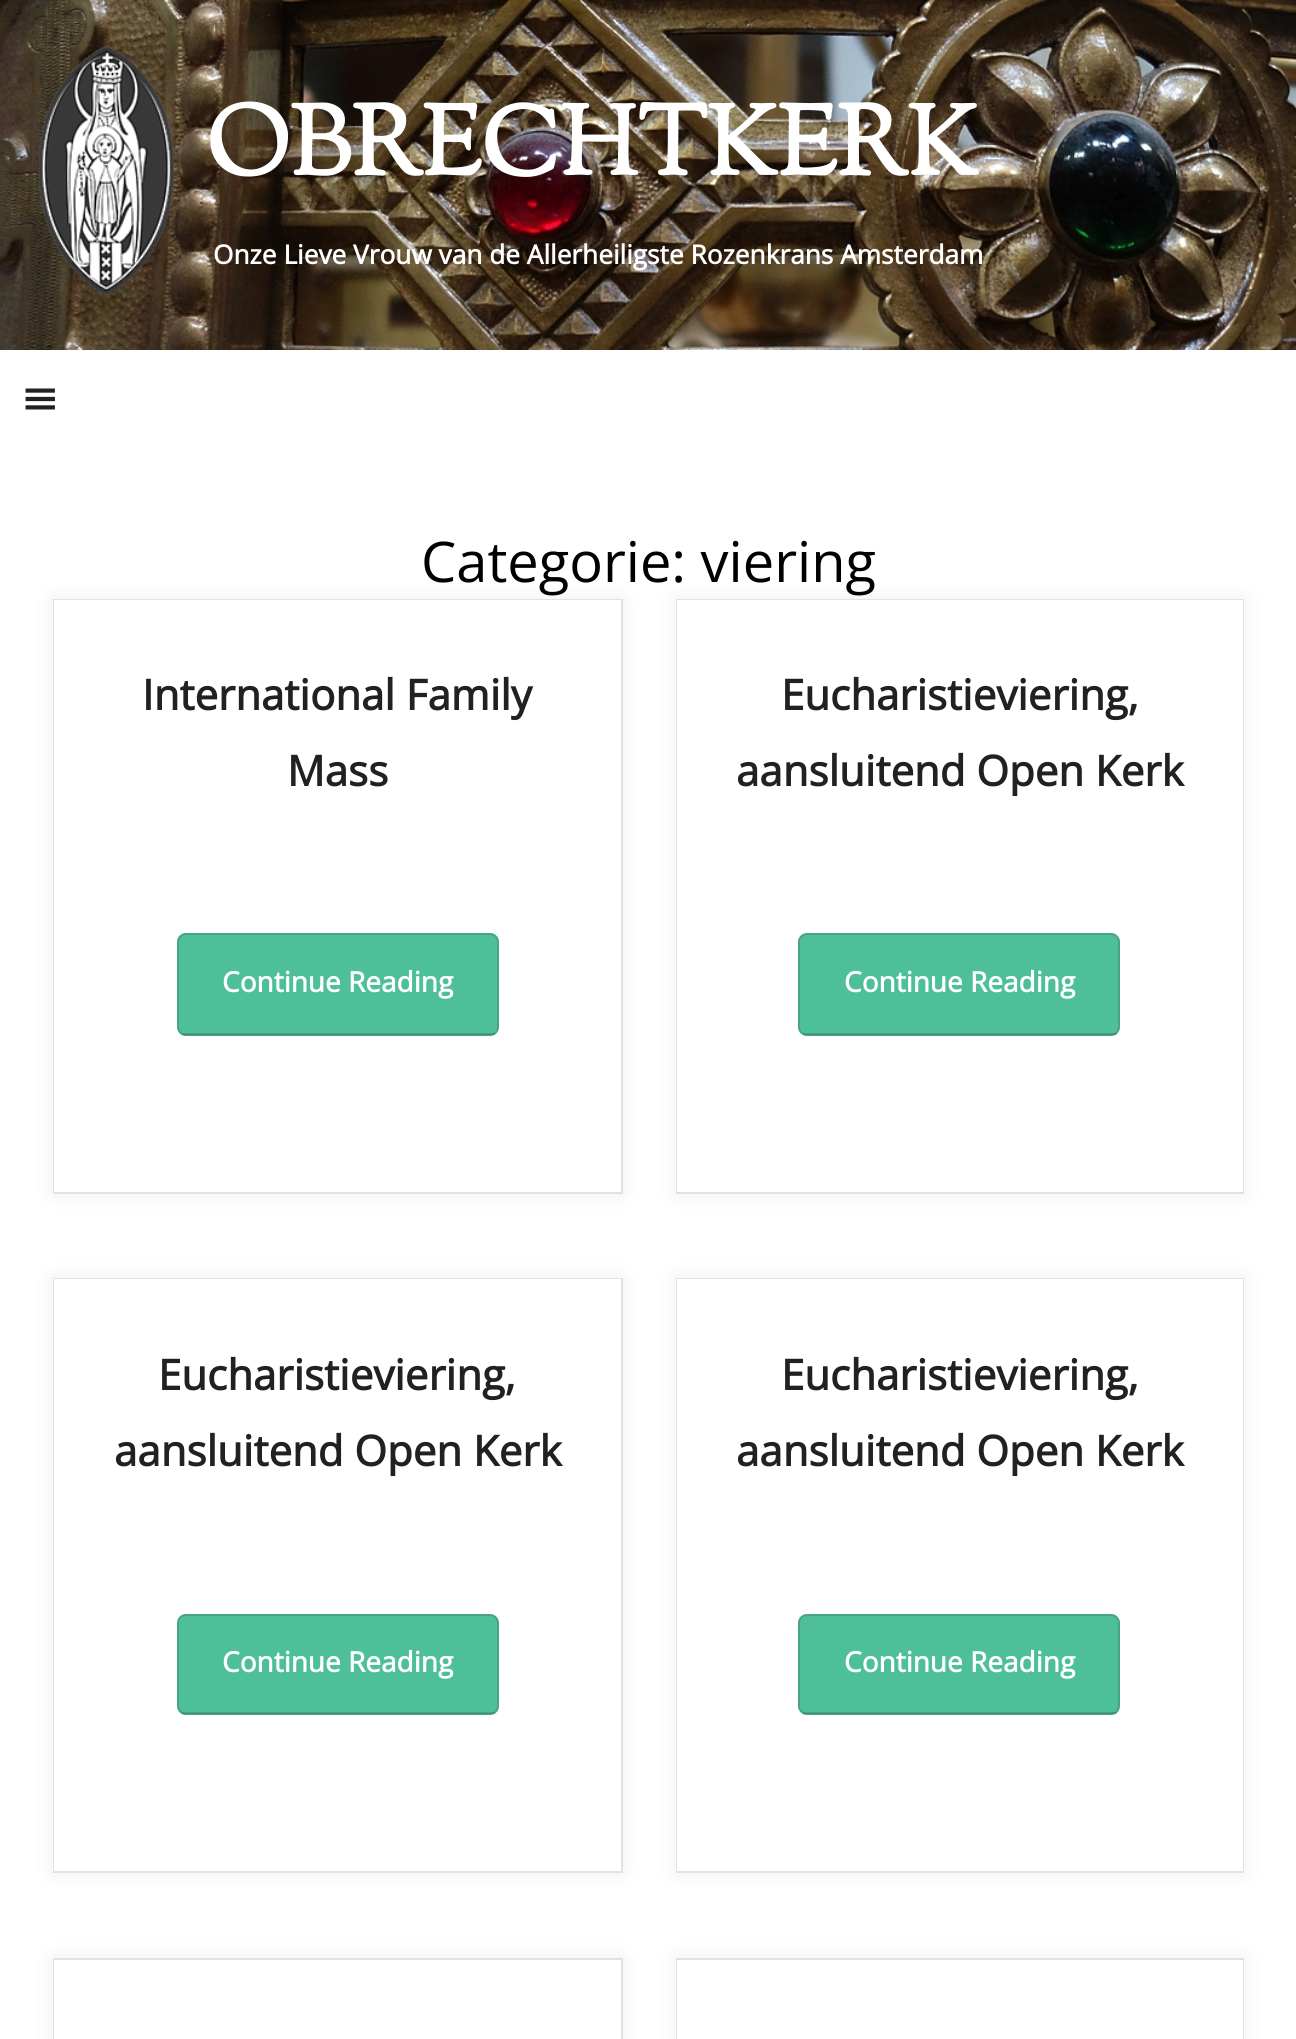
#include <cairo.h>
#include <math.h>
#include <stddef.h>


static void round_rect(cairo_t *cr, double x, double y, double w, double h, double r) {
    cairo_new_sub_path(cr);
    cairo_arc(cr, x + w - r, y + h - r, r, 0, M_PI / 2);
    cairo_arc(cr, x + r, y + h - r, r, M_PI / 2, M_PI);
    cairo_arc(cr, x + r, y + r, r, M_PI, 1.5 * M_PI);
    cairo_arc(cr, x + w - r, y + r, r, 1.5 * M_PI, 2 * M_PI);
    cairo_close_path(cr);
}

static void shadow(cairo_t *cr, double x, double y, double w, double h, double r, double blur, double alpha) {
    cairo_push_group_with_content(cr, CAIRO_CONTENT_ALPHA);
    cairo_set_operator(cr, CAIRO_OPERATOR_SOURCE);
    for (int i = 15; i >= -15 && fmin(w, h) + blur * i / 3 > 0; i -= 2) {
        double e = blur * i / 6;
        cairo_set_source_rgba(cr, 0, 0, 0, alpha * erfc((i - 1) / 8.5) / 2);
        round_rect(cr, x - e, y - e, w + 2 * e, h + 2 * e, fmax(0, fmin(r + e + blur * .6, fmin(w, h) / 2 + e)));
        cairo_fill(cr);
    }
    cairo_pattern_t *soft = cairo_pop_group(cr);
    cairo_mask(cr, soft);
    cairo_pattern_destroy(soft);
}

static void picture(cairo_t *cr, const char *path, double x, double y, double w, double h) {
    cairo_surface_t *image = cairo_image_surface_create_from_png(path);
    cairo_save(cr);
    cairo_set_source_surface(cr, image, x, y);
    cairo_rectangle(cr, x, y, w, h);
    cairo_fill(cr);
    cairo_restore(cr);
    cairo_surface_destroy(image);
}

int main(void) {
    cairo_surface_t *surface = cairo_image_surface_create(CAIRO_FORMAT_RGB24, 1296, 2039);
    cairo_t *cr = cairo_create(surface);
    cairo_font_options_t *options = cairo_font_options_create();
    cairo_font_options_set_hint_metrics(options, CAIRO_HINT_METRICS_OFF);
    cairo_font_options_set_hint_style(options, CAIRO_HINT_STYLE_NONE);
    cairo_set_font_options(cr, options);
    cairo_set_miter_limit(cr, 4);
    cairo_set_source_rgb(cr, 1, 1, 1);
    cairo_paint(cr);
    picture(cr, "img1.png", 0, 0, 1296, 350);
    picture(cr, "img2.png", 39, 46, 135, 250);
    cairo_select_font_face(cr, "Sorts Mill Goudy", CAIRO_FONT_SLANT_NORMAL, CAIRO_FONT_WEIGHT_BOLD);
    cairo_set_font_size(cr, 98);
    cairo_set_source_rgb(cr, 1, 1, 1);
    cairo_move_to(cr, 206, 175);
    cairo_show_text(cr, "OBRECHTKERK");
    cairo_select_font_face(cr, "Open Sans", CAIRO_FONT_SLANT_NORMAL, CAIRO_FONT_WEIGHT_BOLD);
    cairo_set_font_size(cr, 26.25);
    cairo_move_to(cr, 213, 264);
    cairo_show_text(cr, "Onze Lieve Vrouw van de Allerheiligste Rozenkrans Amsterdam");
    picture(cr, "img3.png", 25, 388, 30, 22);
    cairo_select_font_face(cr, "Open Sans", CAIRO_FONT_SLANT_NORMAL, CAIRO_FONT_WEIGHT_NORMAL);
    cairo_set_font_size(cr, 56);
    cairo_set_source_rgb(cr, 0, 0, 0);
    cairo_move_to(cr, 421, 582);
    cairo_show_text(cr, "Categorie: viering");
    cairo_set_source_rgb(cr, 0, 0, 0);
    shadow(cr, 53, 599, 570, 595, 0, 11.5, 0.07);
    cairo_rectangle(cr, 54, 600, 568, 593);
    cairo_set_source_rgb(cr, 0.886, 0.886, 0.898);
    cairo_stroke(cr);
    cairo_set_source_rgb(cr, 1, 1, 1);
    cairo_rectangle(cr, 54, 600, 567, 592);
    cairo_fill(cr);
    cairo_select_font_face(cr, "Open Sans", CAIRO_FONT_SLANT_NORMAL, CAIRO_FONT_WEIGHT_BOLD);
    cairo_set_font_size(cr, 42);
    cairo_set_source_rgb(cr, 0.129, 0.129, 0.129);
    cairo_move_to(cr, 142, 710);
    cairo_show_text(cr, "International Family");
    cairo_move_to(cr, 287, 786);
    cairo_show_text(cr, "Mass");
    cairo_set_source_rgb(cr, 0.302, 0.749, 0.6);
    round_rect(cr, 177, 933, 322, 103, 9);
    cairo_fill(cr);
    round_rect(cr, 178, 934, 320, 101, 8);
    cairo_set_source_rgba(cr, 0.2, 0.2, 0.2, 0.19);
    cairo_stroke(cr);
    cairo_rectangle(cr, 182, 1033, 313, 2);
    cairo_fill(cr);
    cairo_set_font_size(cr, 28);
    cairo_set_source_rgb(cr, 1, 1, 1);
    cairo_move_to(cr, 222, 992);
    cairo_show_text(cr, "Continue Reading");
    cairo_set_source_rgb(cr, 0, 0, 0);
    shadow(cr, 676, 599, 568, 595, 0, 11.5, 0.07);
    cairo_rectangle(cr, 677, 600, 566, 593);
    cairo_set_source_rgb(cr, 0.886, 0.886, 0.898);
    cairo_stroke(cr);
    cairo_set_source_rgb(cr, 1, 1, 1);
    cairo_rectangle(cr, 677, 600, 566, 592);
    cairo_fill(cr);
    cairo_set_font_size(cr, 42);
    cairo_set_source_rgb(cr, 0.129, 0.129, 0.129);
    cairo_move_to(cr, 781, 710);
    cairo_show_text(cr, "Eucharistieviering,");
    cairo_move_to(cr, 736, 786);
    cairo_show_text(cr, "aansluitend Open Kerk");
    cairo_set_source_rgb(cr, 0.302, 0.749, 0.6);
    round_rect(cr, 798, 933, 322, 103, 9);
    cairo_fill(cr);
    round_rect(cr, 799, 934, 320, 101, 8);
    cairo_set_source_rgba(cr, 0.2, 0.2, 0.2, 0.19);
    cairo_stroke(cr);
    cairo_rectangle(cr, 803, 1033, 314, 2);
    cairo_fill(cr);
    cairo_set_font_size(cr, 28);
    cairo_set_source_rgb(cr, 1, 1, 1);
    cairo_move_to(cr, 844, 992);
    cairo_show_text(cr, "Continue Reading");
    cairo_set_source_rgb(cr, 0, 0, 0);
    shadow(cr, 53, 1278, 570, 595, 0, 11.5, 0.07);
    cairo_rectangle(cr, 54, 1279, 568, 593);
    cairo_set_source_rgb(cr, 0.886, 0.886, 0.898);
    cairo_stroke(cr);
    cairo_set_source_rgb(cr, 1, 1, 1);
    cairo_rectangle(cr, 54, 1279, 567, 592);
    cairo_fill(cr);
    cairo_set_font_size(cr, 42);
    cairo_set_source_rgb(cr, 0.129, 0.129, 0.129);
    cairo_move_to(cr, 158, 1390);
    cairo_show_text(cr, "Eucharistieviering,");
    cairo_move_to(cr, 114, 1466);
    cairo_show_text(cr, "aansluitend Open Kerk");
    cairo_set_source_rgb(cr, 0.302, 0.749, 0.6);
    round_rect(cr, 177, 1614, 322, 101, 9);
    cairo_fill(cr);
    round_rect(cr, 178, 1615, 320, 99, 8);
    cairo_set_source_rgba(cr, 0.2, 0.2, 0.2, 0.19);
    cairo_stroke(cr);
    cairo_rectangle(cr, 182, 1712, 313, 2);
    cairo_fill(cr);
    cairo_set_font_size(cr, 28);
    cairo_set_source_rgb(cr, 1, 1, 1);
    cairo_move_to(cr, 222, 1672);
    cairo_show_text(cr, "Continue Reading");
    cairo_set_source_rgb(cr, 0, 0, 0);
    shadow(cr, 676, 1278, 568, 595, 0, 11.5, 0.07);
    cairo_rectangle(cr, 677, 1279, 566, 593);
    cairo_set_source_rgb(cr, 0.886, 0.886, 0.898);
    cairo_stroke(cr);
    cairo_set_source_rgb(cr, 1, 1, 1);
    cairo_rectangle(cr, 677, 1279, 566, 592);
    cairo_fill(cr);
    cairo_set_font_size(cr, 42);
    cairo_set_source_rgb(cr, 0.129, 0.129, 0.129);
    cairo_move_to(cr, 781, 1390);
    cairo_show_text(cr, "Eucharistieviering,");
    cairo_move_to(cr, 736, 1466);
    cairo_show_text(cr, "aansluitend Open Kerk");
    cairo_set_source_rgb(cr, 0.302, 0.749, 0.6);
    round_rect(cr, 798, 1614, 322, 101, 9);
    cairo_fill(cr);
    round_rect(cr, 799, 1615, 320, 99, 8);
    cairo_set_source_rgba(cr, 0.2, 0.2, 0.2, 0.19);
    cairo_stroke(cr);
    cairo_rectangle(cr, 803, 1712, 314, 2);
    cairo_fill(cr);
    cairo_set_font_size(cr, 28);
    cairo_set_source_rgb(cr, 1, 1, 1);
    cairo_move_to(cr, 844, 1672);
    cairo_show_text(cr, "Continue Reading");
    cairo_set_source_rgb(cr, 0, 0, 0);
    shadow(cr, 53, 1958, 570, 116, 0, 11.5, 0.07);
    cairo_rectangle(cr, 54, 1959, 568, 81);
    cairo_set_source_rgb(cr, 0.886, 0.886, 0.898);
    cairo_stroke(cr);
    cairo_set_source_rgb(cr, 1, 1, 1);
    cairo_rectangle(cr, 54, 1960, 567, 79);
    cairo_fill(cr);
    cairo_set_source_rgb(cr, 0, 0, 0);
    shadow(cr, 676, 1958, 568, 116, 0, 11.5, 0.07);
    cairo_rectangle(cr, 677, 1959, 566, 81);
    cairo_set_source_rgb(cr, 0.886, 0.886, 0.898);
    cairo_stroke(cr);
    cairo_set_source_rgb(cr, 1, 1, 1);
    cairo_rectangle(cr, 677, 1960, 566, 79);
    cairo_fill(cr);
    cairo_surface_write_to_png(surface, "page.png");
    cairo_font_options_destroy(options);
    cairo_destroy(cr);
    cairo_surface_destroy(surface);
    return 0;
}
